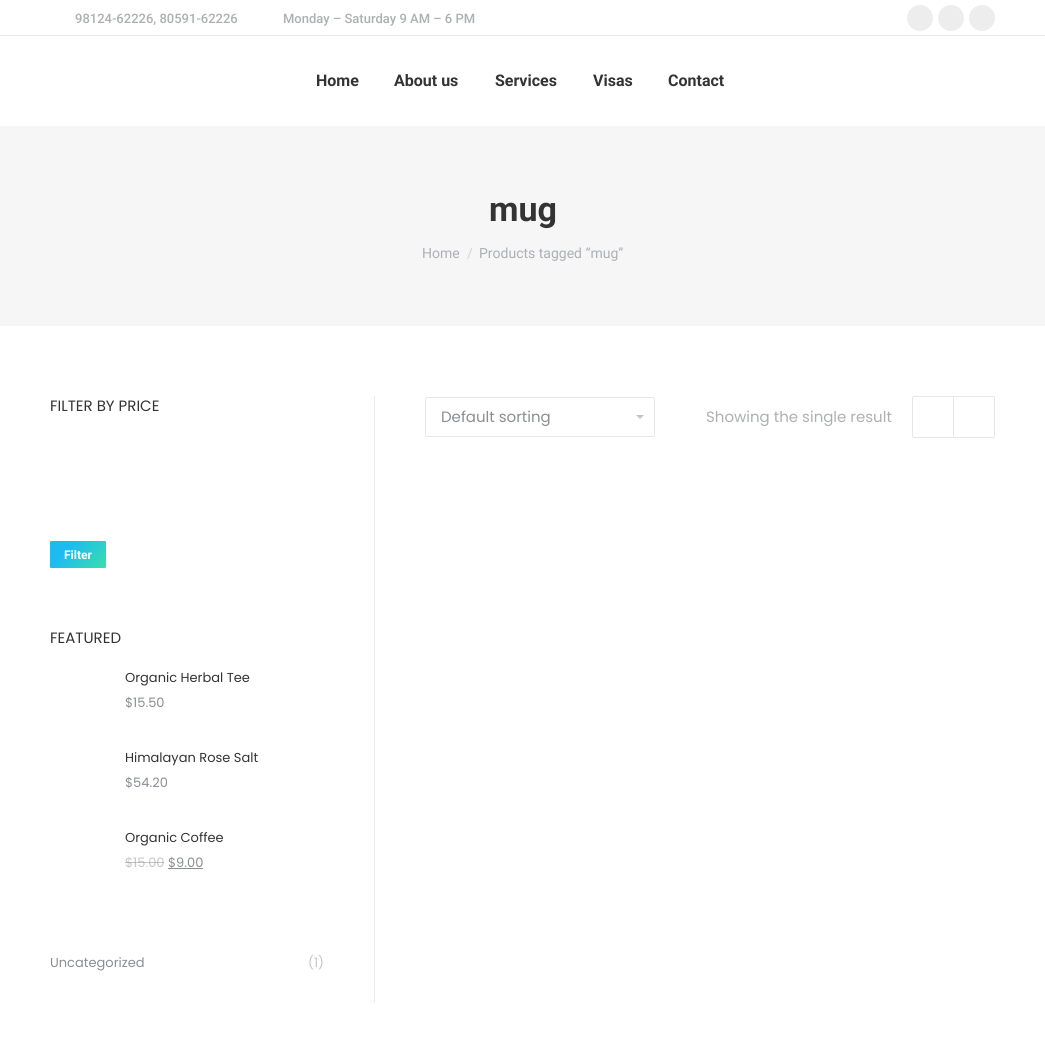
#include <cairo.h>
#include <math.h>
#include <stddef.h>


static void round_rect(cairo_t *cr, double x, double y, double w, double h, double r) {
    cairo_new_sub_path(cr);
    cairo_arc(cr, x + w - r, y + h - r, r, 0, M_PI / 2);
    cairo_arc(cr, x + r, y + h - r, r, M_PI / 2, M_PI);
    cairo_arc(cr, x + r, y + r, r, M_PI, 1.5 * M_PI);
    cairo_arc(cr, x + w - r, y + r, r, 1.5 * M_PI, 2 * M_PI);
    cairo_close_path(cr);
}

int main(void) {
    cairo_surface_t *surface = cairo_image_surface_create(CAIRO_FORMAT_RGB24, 1045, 1045);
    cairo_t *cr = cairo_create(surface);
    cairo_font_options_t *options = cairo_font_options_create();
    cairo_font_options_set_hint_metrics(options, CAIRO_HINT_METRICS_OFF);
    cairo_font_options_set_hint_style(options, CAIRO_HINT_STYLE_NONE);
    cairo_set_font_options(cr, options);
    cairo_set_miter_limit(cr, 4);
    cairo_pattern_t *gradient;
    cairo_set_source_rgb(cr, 1, 1, 1);
    cairo_paint(cr);
    cairo_select_font_face(cr, "Roboto Medium", CAIRO_FONT_SLANT_NORMAL, CAIRO_FONT_WEIGHT_NORMAL);
    cairo_set_font_size(cr, 13);
    cairo_set_source_rgb(cr, 0.678, 0.686, 0.702);
    cairo_move_to(cr, 75, 23);
    cairo_show_text(cr, "98124-62226, 80591-62226");
    cairo_move_to(cr, 283, 23);
    cairo_show_text(cr, "Monday – Saturday 9 AM – 6 PM");
    cairo_set_source_rgb(cr, 0.929, 0.929, 0.929);
    cairo_new_path(cr);
    cairo_arc(cr, 920, 18, 13, 0, 2 * M_PI);
    cairo_fill(cr);
    cairo_arc(cr, 951, 18, 13, 0, 2 * M_PI);
    cairo_fill(cr);
    cairo_arc(cr, 982, 18, 13, 0, 2 * M_PI);
    cairo_fill(cr);
    cairo_set_source_rgb(cr, 0.914, 0.914, 0.914);
    cairo_rectangle(cr, 0, 35, 1045, 1);
    cairo_fill(cr);
    cairo_select_font_face(cr, "Roboto", CAIRO_FONT_SLANT_NORMAL, CAIRO_FONT_WEIGHT_BOLD);
    cairo_set_font_size(cr, 16);
    cairo_set_source_rgb(cr, 0.2, 0.2, 0.2);
    cairo_move_to(cr, 316, 86);
    cairo_show_text(cr, "Home");
    cairo_move_to(cr, 394, 86);
    cairo_show_text(cr, "About us");
    cairo_move_to(cr, 495, 86);
    cairo_show_text(cr, "Services");
    cairo_move_to(cr, 593, 86);
    cairo_show_text(cr, "Visas");
    cairo_move_to(cr, 668, 86);
    cairo_show_text(cr, "Contact");
    cairo_set_source_rgb(cr, 0.961, 0.961, 0.961);
    cairo_rectangle(cr, 0, 126, 1045, 200);
    cairo_fill(cr);
    cairo_set_font_size(cr, 34);
    cairo_set_source_rgb(cr, 0.2, 0.2, 0.2);
    cairo_move_to(cr, 489, 221);
    cairo_show_text(cr, "mug");
    cairo_select_font_face(cr, "Roboto", CAIRO_FONT_SLANT_NORMAL, CAIRO_FONT_WEIGHT_NORMAL);
    cairo_set_font_size(cr, 14);
    cairo_set_source_rgb(cr, 0.678, 0.686, 0.702);
    cairo_move_to(cr, 422, 258);
    cairo_show_text(cr, "Home");
    cairo_set_source_rgb(cr, 0.82, 0.824, 0.831);
    cairo_move_to(cr, 467, 258);
    cairo_show_text(cr, "/");
    cairo_set_source_rgb(cr, 0.678, 0.686, 0.702);
    cairo_move_to(cr, 479, 258);
    cairo_show_text(cr, "Products tagged “mug”");
    cairo_set_source_rgb(cr, 0.922, 0.922, 0.922);
    cairo_rectangle(cr, 374, 396, 1, 607);
    cairo_fill(cr);
    cairo_select_font_face(cr, "Poppins", CAIRO_FONT_SLANT_NORMAL, CAIRO_FONT_WEIGHT_NORMAL);
    cairo_set_font_size(cr, 15);
    cairo_set_source_rgb(cr, 0.2, 0.2, 0.2);
    cairo_move_to(cr, 50, 411);
    cairo_show_text(cr, "FILTER BY PRICE");
    gradient = cairo_pattern_create_linear(57, 534, 99, 575);
    cairo_pattern_add_color_stop_rgba(gradient, 0.3, 0.118, 0.733, 0.941, 1);
    cairo_pattern_add_color_stop_rgba(gradient, 1, 0.224, 0.875, 0.667, 1);
    cairo_set_source(cr, gradient);
    cairo_pattern_destroy(gradient);
    round_rect(cr, 50, 541, 56, 27, 1);
    cairo_fill(cr);
    cairo_select_font_face(cr, "Roboto", CAIRO_FONT_SLANT_NORMAL, CAIRO_FONT_WEIGHT_BOLD);
    cairo_set_font_size(cr, 12);
    cairo_set_source_rgb(cr, 1, 1, 1);
    cairo_move_to(cr, 64, 559);
    cairo_show_text(cr, "Filter");
    cairo_select_font_face(cr, "Poppins", CAIRO_FONT_SLANT_NORMAL, CAIRO_FONT_WEIGHT_NORMAL);
    cairo_set_font_size(cr, 15);
    cairo_set_source_rgb(cr, 0.2, 0.2, 0.2);
    cairo_move_to(cr, 50, 643);
    cairo_show_text(cr, "FEATURED");
    cairo_set_font_size(cr, 13);
    cairo_move_to(cr, 125, 682);
    cairo_show_text(cr, "Organic Herbal Tee");
    cairo_set_source_rgb(cr, 0.545, 0.553, 0.58);
    cairo_move_to(cr, 125, 707);
    cairo_show_text(cr, "$15.50");
    cairo_set_source_rgb(cr, 0.2, 0.2, 0.2);
    cairo_move_to(cr, 125, 762);
    cairo_show_text(cr, "Himalayan Rose Salt");
    cairo_set_source_rgb(cr, 0.545, 0.553, 0.58);
    cairo_move_to(cr, 125, 787);
    cairo_show_text(cr, "$54.20");
    cairo_set_source_rgb(cr, 0.2, 0.2, 0.2);
    cairo_move_to(cr, 125, 842);
    cairo_show_text(cr, "Organic Coffee");
    cairo_set_source_rgb(cr, 0.773, 0.776, 0.792);
    cairo_move_to(cr, 125, 867);
    cairo_show_text(cr, "$15.00");
    cairo_set_source_rgba(cr, 0.545, 0.553, 0.58, 0.5);
    cairo_rectangle(cr, 125, 862, 8, 1);
    cairo_fill(cr);
    cairo_rectangle(cr, 133, 862, 31, 1);
    cairo_fill(cr);
    cairo_set_source_rgb(cr, 0.545, 0.553, 0.58);
    cairo_rectangle(cr, 168, 868, 35, 1);
    cairo_fill(cr);
    cairo_move_to(cr, 168, 867);
    cairo_show_text(cr, "$9.00");
    cairo_move_to(cr, 50, 967);
    cairo_show_text(cr, "Uncategorized");
    cairo_set_source_rgb(cr, 0.773, 0.776, 0.792);
    cairo_move_to(cr, 308, 967);
    cairo_show_text(cr, "(1)");
    cairo_set_source_rgb(cr, 0.769, 0.773, 0.788);
    cairo_new_path(cr);
    cairo_move_to(cr, 636, 415);
    cairo_line_to(cr, 640, 419);
    cairo_line_to(cr, 644, 415);
    cairo_close_path(cr);
    cairo_fill(cr);
    round_rect(cr, 425.5, 397.5, 229, 39, 1.5);
    cairo_set_source_rgb(cr, 0.906, 0.906, 0.906);
    cairo_set_line_width(cr, 1);
    cairo_stroke(cr);
    cairo_set_font_size(cr, 15);
    cairo_set_source_rgb(cr, 0.545, 0.553, 0.58);
    cairo_move_to(cr, 441, 422);
    cairo_show_text(cr, "Default sorting");
    cairo_set_source_rgb(cr, 0.678, 0.686, 0.702);
    cairo_move_to(cr, 706, 422);
    cairo_show_text(cr, "Showing the single result");
    cairo_set_source_rgb(cr, 0.906, 0.906, 0.906);
    cairo_rectangle(cr, 913, 396, 40, 1);
    cairo_fill(cr);
    cairo_rectangle(cr, 913, 437, 40, 1);
    cairo_fill(cr);
    cairo_rectangle(cr, 912, 397, 1, 40);
    cairo_fill(cr);
    cairo_new_path(cr);
    cairo_move_to(cr, 953.5, 396.5);
    cairo_line_to(cr, 993, 396.5);
    cairo_curve_to(cr, 994, 396.5, 994.5, 397, 994.5, 398);
    cairo_line_to(cr, 994.5, 436);
    cairo_curve_to(cr, 994.5, 437, 994, 437.5, 993, 437.5);
    cairo_line_to(cr, 953.5, 437.5);
    cairo_close_path(cr);
    cairo_stroke(cr);
    cairo_surface_write_to_png(surface, "page.png");
    cairo_font_options_destroy(options);
    cairo_destroy(cr);
    cairo_surface_destroy(surface);
    return 0;
}
